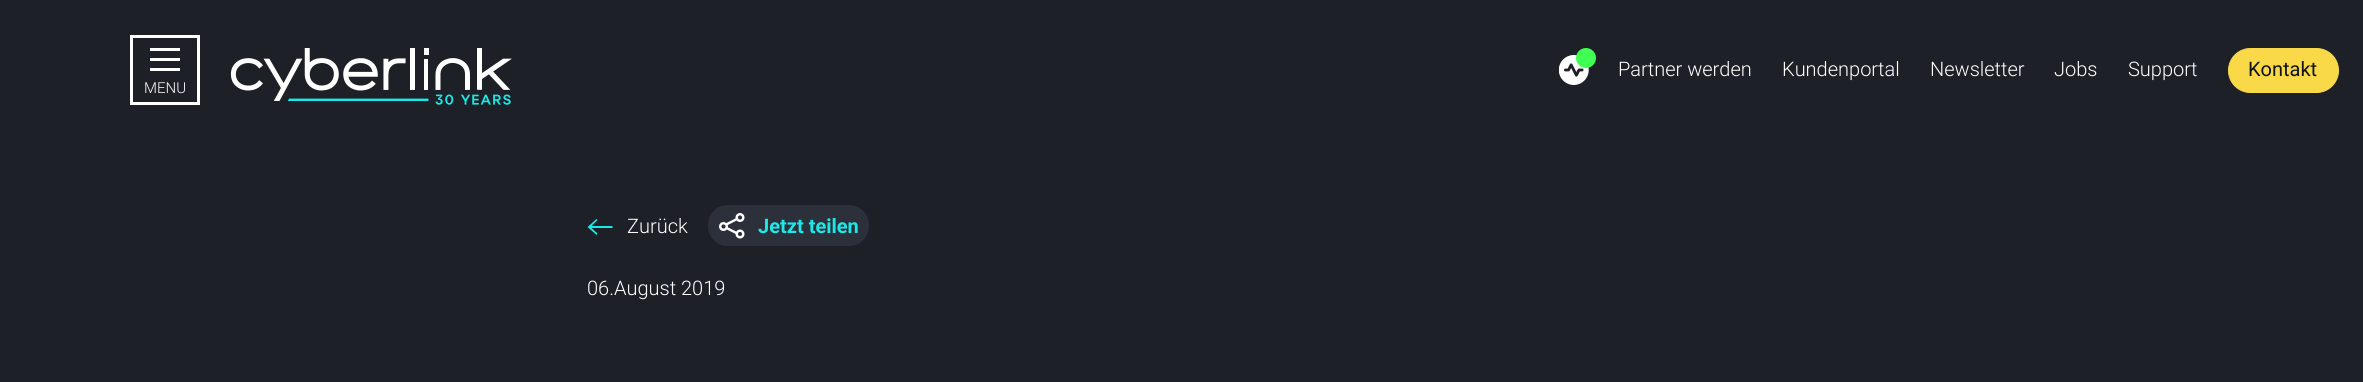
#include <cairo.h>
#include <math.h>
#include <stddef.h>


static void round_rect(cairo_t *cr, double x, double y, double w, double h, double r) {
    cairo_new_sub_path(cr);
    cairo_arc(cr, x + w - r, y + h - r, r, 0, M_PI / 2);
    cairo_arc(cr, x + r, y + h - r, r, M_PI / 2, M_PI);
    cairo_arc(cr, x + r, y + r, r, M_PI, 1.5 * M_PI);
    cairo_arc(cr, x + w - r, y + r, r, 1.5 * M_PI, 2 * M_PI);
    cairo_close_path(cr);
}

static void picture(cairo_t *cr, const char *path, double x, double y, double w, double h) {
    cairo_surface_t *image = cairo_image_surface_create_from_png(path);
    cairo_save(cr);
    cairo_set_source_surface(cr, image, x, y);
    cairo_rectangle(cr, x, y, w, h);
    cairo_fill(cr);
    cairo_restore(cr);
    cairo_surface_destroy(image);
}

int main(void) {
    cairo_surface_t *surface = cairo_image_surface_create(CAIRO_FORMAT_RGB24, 2363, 382);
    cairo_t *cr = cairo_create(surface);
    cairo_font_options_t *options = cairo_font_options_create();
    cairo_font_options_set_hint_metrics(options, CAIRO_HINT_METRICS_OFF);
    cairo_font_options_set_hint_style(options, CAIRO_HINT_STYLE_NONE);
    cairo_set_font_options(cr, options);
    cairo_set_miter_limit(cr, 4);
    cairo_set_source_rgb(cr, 0.114, 0.125, 0.149);
    cairo_paint(cr);
    picture(cr, "img1.png", 1559, 55, 30, 30);
    cairo_set_source_rgb(cr, 0.247, 1, 0.322);
    cairo_arc(cr, 1586, 58, 10, 0, 2 * M_PI);
    cairo_fill(cr);
    cairo_select_font_face(cr, "Roboto Light", CAIRO_FONT_SLANT_NORMAL, CAIRO_FONT_WEIGHT_NORMAL);
    cairo_set_font_size(cr, 20);
    cairo_set_source_rgb(cr, 1, 1, 1);
    cairo_move_to(cr, 1618, 76);
    cairo_show_text(cr, "Partner werden");
    cairo_move_to(cr, 1782, 76);
    cairo_show_text(cr, "Kundenportal");
    cairo_move_to(cr, 1930, 76);
    cairo_show_text(cr, "Newsletter");
    cairo_move_to(cr, 2054, 76);
    cairo_show_text(cr, "Jobs");
    cairo_move_to(cr, 2128, 76);
    cairo_show_text(cr, "Support");
    cairo_set_source_rgb(cr, 0.973, 0.851, 0.282);
    round_rect(cr, 2228.5, 48.5, 110, 44, 22);
    cairo_fill_preserve(cr);
    cairo_set_line_width(cr, 1);
    cairo_stroke(cr);
    cairo_select_font_face(cr, "Roboto", CAIRO_FONT_SLANT_NORMAL, CAIRO_FONT_WEIGHT_NORMAL);
    cairo_set_source_rgb(cr, 0.067, 0.075, 0.09);
    cairo_move_to(cr, 2248, 76);
    cairo_show_text(cr, "Kontakt");
    cairo_rectangle(cr, 131.5, 36.5, 67, 67);
    cairo_set_source_rgb(cr, 1, 1, 1);
    cairo_set_line_width(cr, 3);
    cairo_stroke(cr);
    cairo_rectangle(cr, 150, 48, 30, 3);
    cairo_fill(cr);
    cairo_rectangle(cr, 150, 58, 30, 3);
    cairo_fill(cr);
    cairo_rectangle(cr, 150, 68, 30, 3);
    cairo_fill(cr);
    cairo_select_font_face(cr, "Roboto Light", CAIRO_FONT_SLANT_NORMAL, CAIRO_FONT_WEIGHT_NORMAL);
    cairo_set_font_size(cr, 15);
    cairo_move_to(cr, 144, 93);
    cairo_show_text(cr, "MENU");
    picture(cr, "img2.png", 230, 48, 282, 57);
    cairo_set_source_rgb(cr, 0.114, 0.91, 0.91);
    cairo_set_fill_rule(cr, CAIRO_FILL_RULE_EVEN_ODD);
    cairo_new_path(cr);
    cairo_move_to(cr, 596.5, 219);
    cairo_line_to(cr, 587.5, 227);
    cairo_line_to(cr, 596.5, 235);
    cairo_line_to(cr, 597.5, 233.5);
    cairo_line_to(cr, 591.5, 228);
    cairo_line_to(cr, 612.5, 228);
    cairo_line_to(cr, 612.5, 226);
    cairo_line_to(cr, 591.5, 226);
    cairo_line_to(cr, 597.5, 220);
    cairo_close_path(cr);
    cairo_fill(cr);
    cairo_set_font_size(cr, 20);
    cairo_set_source_rgb(cr, 1, 1, 1);
    cairo_move_to(cr, 627, 233);
    cairo_show_text(cr, "Zurück");
    cairo_set_source_rgb(cr, 0.173, 0.188, 0.231);
    round_rect(cr, 708, 205, 161, 41, 20);
    cairo_fill(cr);
    picture(cr, "img3.png", 719, 213, 26, 26);
    cairo_select_font_face(cr, "Roboto", CAIRO_FONT_SLANT_NORMAL, CAIRO_FONT_WEIGHT_BOLD);
    cairo_set_source_rgb(cr, 0.114, 0.91, 0.91);
    cairo_move_to(cr, 758, 233);
    cairo_show_text(cr, "Jetzt teilen");
    cairo_select_font_face(cr, "Roboto Light", CAIRO_FONT_SLANT_NORMAL, CAIRO_FONT_WEIGHT_NORMAL);
    cairo_set_source_rgb(cr, 1, 1, 1);
    cairo_move_to(cr, 587, 295);
    cairo_show_text(cr, "06.August 2019");
    cairo_surface_write_to_png(surface, "page.png");
    cairo_font_options_destroy(options);
    cairo_destroy(cr);
    cairo_surface_destroy(surface);
    return 0;
}
